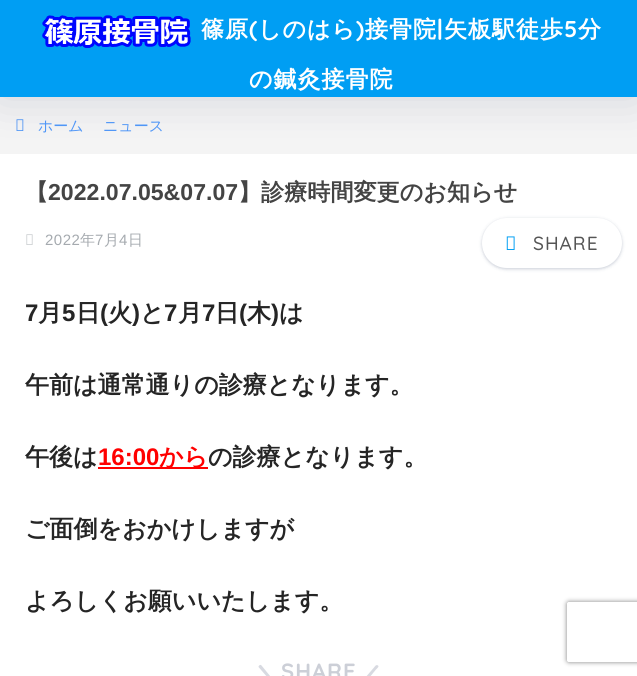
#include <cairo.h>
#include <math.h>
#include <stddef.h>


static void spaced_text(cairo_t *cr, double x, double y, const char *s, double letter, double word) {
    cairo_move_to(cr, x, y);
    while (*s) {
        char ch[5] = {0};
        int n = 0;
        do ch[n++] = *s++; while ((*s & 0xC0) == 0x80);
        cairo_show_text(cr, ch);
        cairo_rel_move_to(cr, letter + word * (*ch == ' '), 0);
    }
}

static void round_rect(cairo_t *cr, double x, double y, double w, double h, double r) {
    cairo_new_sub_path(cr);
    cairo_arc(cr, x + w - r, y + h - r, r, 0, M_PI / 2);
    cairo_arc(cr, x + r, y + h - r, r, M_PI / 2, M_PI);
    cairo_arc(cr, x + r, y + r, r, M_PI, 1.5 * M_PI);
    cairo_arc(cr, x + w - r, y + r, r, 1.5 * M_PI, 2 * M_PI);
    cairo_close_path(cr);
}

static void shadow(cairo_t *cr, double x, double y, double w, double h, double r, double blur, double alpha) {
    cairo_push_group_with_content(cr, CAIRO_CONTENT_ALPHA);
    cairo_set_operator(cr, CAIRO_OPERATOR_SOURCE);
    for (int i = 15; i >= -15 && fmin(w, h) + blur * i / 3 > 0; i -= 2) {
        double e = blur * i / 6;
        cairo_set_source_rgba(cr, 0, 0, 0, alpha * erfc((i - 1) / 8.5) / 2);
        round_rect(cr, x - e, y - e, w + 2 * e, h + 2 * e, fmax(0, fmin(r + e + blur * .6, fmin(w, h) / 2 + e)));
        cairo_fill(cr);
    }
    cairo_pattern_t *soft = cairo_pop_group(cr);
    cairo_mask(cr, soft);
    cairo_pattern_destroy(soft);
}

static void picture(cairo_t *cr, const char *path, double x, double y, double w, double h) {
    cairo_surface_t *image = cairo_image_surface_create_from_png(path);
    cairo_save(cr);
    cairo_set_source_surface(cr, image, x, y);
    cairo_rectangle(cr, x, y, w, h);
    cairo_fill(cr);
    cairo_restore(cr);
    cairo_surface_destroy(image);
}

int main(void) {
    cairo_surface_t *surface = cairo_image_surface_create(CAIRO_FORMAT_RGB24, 637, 676);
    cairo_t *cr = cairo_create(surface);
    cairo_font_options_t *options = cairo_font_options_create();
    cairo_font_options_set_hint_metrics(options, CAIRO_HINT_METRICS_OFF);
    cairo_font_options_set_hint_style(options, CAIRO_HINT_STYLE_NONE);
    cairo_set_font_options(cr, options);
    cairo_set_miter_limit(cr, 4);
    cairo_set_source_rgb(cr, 1, 1, 1);
    cairo_paint(cr);
    cairo_set_source_rgb(cr, 0.957, 0.957, 0.957);
    cairo_rectangle(cr, 0, 97, 637, 57);
    cairo_fill(cr);
    picture(cr, "img2.png", 16, 119, 8, 12);
    cairo_set_source_rgb(cr, 0, 0.047, 0.259);
    shadow(cr, 0, 0, 637, 97, 0, 22.5, 0.15);
    cairo_set_source_rgb(cr, 0, 0.62, 0.953);
    cairo_rectangle(cr, 0, 0, 637, 97);
    cairo_fill(cr);
    picture(cr, "img1.png", 42, 15, 149, 33);
    cairo_select_font_face(cr, "WenQuanYi Zen Hei", CAIRO_FONT_SLANT_NORMAL, CAIRO_FONT_WEIGHT_BOLD);
    cairo_set_font_size(cr, 23);
    cairo_set_source_rgb(cr, 1, 1, 1);
    spaced_text(cr, 201, 37, "篠原", 1, 0);
    cairo_select_font_face(cr, "Quicksand", CAIRO_FONT_SLANT_NORMAL, CAIRO_FONT_WEIGHT_BOLD);
    spaced_text(cr, 249, 37, "(", 1, 0);
    cairo_select_font_face(cr, "WenQuanYi Zen Hei", CAIRO_FONT_SLANT_NORMAL, CAIRO_FONT_WEIGHT_BOLD);
    spaced_text(cr, 258, 37, "しのはら", 1, 0);
    cairo_select_font_face(cr, "Quicksand", CAIRO_FONT_SLANT_NORMAL, CAIRO_FONT_WEIGHT_BOLD);
    spaced_text(cr, 356, 37, ")", 1, 0);
    cairo_select_font_face(cr, "WenQuanYi Zen Hei", CAIRO_FONT_SLANT_NORMAL, CAIRO_FONT_WEIGHT_BOLD);
    spaced_text(cr, 365, 37, "接骨院", 1, 0);
    cairo_select_font_face(cr, "Quicksand", CAIRO_FONT_SLANT_NORMAL, CAIRO_FONT_WEIGHT_BOLD);
    spaced_text(cr, 437, 37, "|", 1, 0);
    cairo_select_font_face(cr, "WenQuanYi Zen Hei", CAIRO_FONT_SLANT_NORMAL, CAIRO_FONT_WEIGHT_BOLD);
    spaced_text(cr, 444, 37, "矢板駅徒歩", 1, 0);
    cairo_select_font_face(cr, "Quicksand", CAIRO_FONT_SLANT_NORMAL, CAIRO_FONT_WEIGHT_BOLD);
    spaced_text(cr, 564, 37, "5", 1, 0);
    cairo_select_font_face(cr, "WenQuanYi Zen Hei", CAIRO_FONT_SLANT_NORMAL, CAIRO_FONT_WEIGHT_BOLD);
    spaced_text(cr, 578, 37, "分", 1, 0);
    spaced_text(cr, 249, 87, "の鍼灸接骨院", 1, 0);
    cairo_select_font_face(cr, "WenQuanYi Zen Hei Medium", CAIRO_FONT_SLANT_NORMAL, CAIRO_FONT_WEIGHT_NORMAL);
    cairo_set_font_size(cr, 15);
    cairo_set_source_rgb(cr, 0.31, 0.588, 0.965);
    cairo_move_to(cr, 38, 131);
    cairo_show_text(cr, "ホーム");
    cairo_move_to(cr, 103, 131);
    cairo_show_text(cr, "ニュース");
    cairo_select_font_face(cr, "WenQuanYi Zen Hei", CAIRO_FONT_SLANT_NORMAL, CAIRO_FONT_WEIGHT_BOLD);
    cairo_set_font_size(cr, 23.1);
    cairo_set_source_rgb(cr, 0.267, 0.267, 0.267);
    cairo_move_to(cr, 25, 200);
    cairo_show_text(cr, "【");
    cairo_select_font_face(cr, "Liberation Sans", CAIRO_FONT_SLANT_NORMAL, CAIRO_FONT_WEIGHT_BOLD);
    cairo_move_to(cr, 48, 200);
    cairo_show_text(cr, "2022.07.05&07.07");
    cairo_select_font_face(cr, "WenQuanYi Zen Hei", CAIRO_FONT_SLANT_NORMAL, CAIRO_FONT_WEIGHT_BOLD);
    cairo_move_to(cr, 238, 200);
    cairo_show_text(cr, "】診療時間変更のお知らせ");
    picture(cr, "img3.png", 26, 234, 7, 11);
    cairo_select_font_face(cr, "Liberation Sans", CAIRO_FONT_SLANT_NORMAL, CAIRO_FONT_WEIGHT_NORMAL);
    cairo_set_font_size(cr, 15);
    cairo_set_source_rgb(cr, 0.647, 0.667, 0.686);
    spaced_text(cr, 45, 245, "2022", 0.5, 0);
    cairo_select_font_face(cr, "WenQuanYi Zen Hei Medium", CAIRO_FONT_SLANT_NORMAL, CAIRO_FONT_WEIGHT_NORMAL);
    spaced_text(cr, 80, 245, "年", 0.5, 0);
    cairo_select_font_face(cr, "Liberation Sans", CAIRO_FONT_SLANT_NORMAL, CAIRO_FONT_WEIGHT_NORMAL);
    spaced_text(cr, 95, 245, "7", 0.5, 0);
    cairo_select_font_face(cr, "WenQuanYi Zen Hei Medium", CAIRO_FONT_SLANT_NORMAL, CAIRO_FONT_WEIGHT_NORMAL);
    spaced_text(cr, 104, 245, "月", 0.5, 0);
    cairo_select_font_face(cr, "Liberation Sans", CAIRO_FONT_SLANT_NORMAL, CAIRO_FONT_WEIGHT_NORMAL);
    spaced_text(cr, 119, 245, "4", 0.5, 0);
    cairo_select_font_face(cr, "WenQuanYi Zen Hei Medium", CAIRO_FONT_SLANT_NORMAL, CAIRO_FONT_WEIGHT_NORMAL);
    spaced_text(cr, 128, 245, "日", 0.5, 0);
    cairo_set_source_rgb(cr, 0.094, 0.173, 0.329);
    shadow(cr, 481, 218, 142, 52, 26, 1.5, 0.1);
    shadow(cr, 482, 219, 140, 50, 25, 1, 0.1);
    cairo_set_source_rgb(cr, 1, 1, 1);
    round_rect(cr, 482, 218, 140, 50, 25);
    cairo_fill(cr);
    picture(cr, "img4.png", 506, 236, 9, 14);
    cairo_select_font_face(cr, "Quicksand Medium", CAIRO_FONT_SLANT_NORMAL, CAIRO_FONT_WEIGHT_NORMAL);
    cairo_set_font_size(cr, 19);
    cairo_set_source_rgb(cr, 0.333, 0.333, 0.333);
    spaced_text(cr, 533, 250, "SHARE", 1, 0);
    cairo_select_font_face(cr, "Liberation Sans", CAIRO_FONT_SLANT_NORMAL, CAIRO_FONT_WEIGHT_BOLD);
    cairo_set_font_size(cr, 24);
    cairo_set_source_rgb(cr, 0.145, 0.145, 0.145);
    cairo_move_to(cr, 25, 321);
    cairo_show_text(cr, "7");
    cairo_select_font_face(cr, "WenQuanYi Zen Hei", CAIRO_FONT_SLANT_NORMAL, CAIRO_FONT_WEIGHT_BOLD);
    cairo_move_to(cr, 38, 321);
    cairo_show_text(cr, "月");
    cairo_select_font_face(cr, "Liberation Sans", CAIRO_FONT_SLANT_NORMAL, CAIRO_FONT_WEIGHT_BOLD);
    cairo_move_to(cr, 62, 321);
    cairo_show_text(cr, "5");
    cairo_select_font_face(cr, "WenQuanYi Zen Hei", CAIRO_FONT_SLANT_NORMAL, CAIRO_FONT_WEIGHT_BOLD);
    cairo_move_to(cr, 76, 321);
    cairo_show_text(cr, "日");
    cairo_select_font_face(cr, "Liberation Sans", CAIRO_FONT_SLANT_NORMAL, CAIRO_FONT_WEIGHT_BOLD);
    cairo_move_to(cr, 100, 321);
    cairo_show_text(cr, "(");
    cairo_select_font_face(cr, "WenQuanYi Zen Hei", CAIRO_FONT_SLANT_NORMAL, CAIRO_FONT_WEIGHT_BOLD);
    cairo_move_to(cr, 108, 321);
    cairo_show_text(cr, "火");
    cairo_select_font_face(cr, "Liberation Sans", CAIRO_FONT_SLANT_NORMAL, CAIRO_FONT_WEIGHT_BOLD);
    cairo_move_to(cr, 132, 321);
    cairo_show_text(cr, ")");
    cairo_select_font_face(cr, "WenQuanYi Zen Hei", CAIRO_FONT_SLANT_NORMAL, CAIRO_FONT_WEIGHT_BOLD);
    cairo_move_to(cr, 140, 321);
    cairo_show_text(cr, "と");
    cairo_select_font_face(cr, "Liberation Sans", CAIRO_FONT_SLANT_NORMAL, CAIRO_FONT_WEIGHT_BOLD);
    cairo_move_to(cr, 164, 321);
    cairo_show_text(cr, "7");
    cairo_select_font_face(cr, "WenQuanYi Zen Hei", CAIRO_FONT_SLANT_NORMAL, CAIRO_FONT_WEIGHT_BOLD);
    cairo_move_to(cr, 178, 321);
    cairo_show_text(cr, "月");
    cairo_select_font_face(cr, "Liberation Sans", CAIRO_FONT_SLANT_NORMAL, CAIRO_FONT_WEIGHT_BOLD);
    cairo_move_to(cr, 202, 321);
    cairo_show_text(cr, "7");
    cairo_select_font_face(cr, "WenQuanYi Zen Hei", CAIRO_FONT_SLANT_NORMAL, CAIRO_FONT_WEIGHT_BOLD);
    cairo_move_to(cr, 215, 321);
    cairo_show_text(cr, "日");
    cairo_select_font_face(cr, "Liberation Sans", CAIRO_FONT_SLANT_NORMAL, CAIRO_FONT_WEIGHT_BOLD);
    cairo_move_to(cr, 239, 321);
    cairo_show_text(cr, "(");
    cairo_select_font_face(cr, "WenQuanYi Zen Hei", CAIRO_FONT_SLANT_NORMAL, CAIRO_FONT_WEIGHT_BOLD);
    cairo_move_to(cr, 247, 321);
    cairo_show_text(cr, "木");
    cairo_select_font_face(cr, "Liberation Sans", CAIRO_FONT_SLANT_NORMAL, CAIRO_FONT_WEIGHT_BOLD);
    cairo_move_to(cr, 271, 321);
    cairo_show_text(cr, ")");
    cairo_select_font_face(cr, "WenQuanYi Zen Hei", CAIRO_FONT_SLANT_NORMAL, CAIRO_FONT_WEIGHT_BOLD);
    cairo_move_to(cr, 279, 321);
    cairo_show_text(cr, "は");
    cairo_move_to(cr, 25, 393);
    cairo_show_text(cr, "午前は通常通りの診療となります。");
    cairo_move_to(cr, 25, 465);
    cairo_show_text(cr, "午後は");
    cairo_select_font_face(cr, "Liberation Sans", CAIRO_FONT_SLANT_NORMAL, CAIRO_FONT_WEIGHT_BOLD);
    cairo_set_source_rgb(cr, 1, 0, 0);
    cairo_move_to(cr, 98, 465);
    cairo_show_text(cr, "16:00");
    cairo_rectangle(cr, 98, 467, 110, 2);
    cairo_fill(cr);
    cairo_select_font_face(cr, "WenQuanYi Zen Hei", CAIRO_FONT_SLANT_NORMAL, CAIRO_FONT_WEIGHT_BOLD);
    cairo_move_to(cr, 159, 465);
    cairo_show_text(cr, "から");
    cairo_set_source_rgb(cr, 0.145, 0.145, 0.145);
    cairo_move_to(cr, 208, 465);
    cairo_show_text(cr, "の診療となります。");
    cairo_move_to(cr, 25, 537);
    cairo_show_text(cr, "ご面倒をおかけしますが");
    cairo_move_to(cr, 25, 609);
    cairo_show_text(cr, "よろしくお願いいたします。");
    cairo_set_source_rgb(cr, 0.847, 0.855, 0.882);
    cairo_new_path(cr);
    cairo_move_to(cr, 261.5, 665.5);
    cairo_line_to(cr, 270.5, 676.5);
    cairo_curve_to(cr, 271, 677, 273.5, 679, 272, 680.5);
    cairo_curve_to(cr, 270.5, 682, 269, 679, 268, 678);
    cairo_line_to(cr, 258.5, 667);
    cairo_curve_to(cr, 258.5, 665.5, 260.5, 664, 261.5, 665.5);
    cairo_close_path(cr);
    cairo_fill(cr);
    cairo_select_font_face(cr, "Quicksand", CAIRO_FONT_SLANT_NORMAL, CAIRO_FONT_WEIGHT_BOLD);
    cairo_set_font_size(cr, 22);
    cairo_set_source_rgb(cr, 0.8, 0.812, 0.843);
    spaced_text(cr, 281, 679, "SHARE", 1, 0);
    cairo_set_source_rgb(cr, 0.847, 0.855, 0.882);
    cairo_new_path(cr);
    cairo_move_to(cr, 364.5, 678.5);
    cairo_line_to(cr, 374, 667.5);
    cairo_curve_to(cr, 374.5, 667, 376, 664, 378, 665.5);
    cairo_curve_to(cr, 379.5, 666.5, 377, 668.5, 376, 669.5);
    cairo_line_to(cr, 366.5, 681);
    cairo_curve_to(cr, 365, 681.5, 363.5, 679.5, 364.5, 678.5);
    cairo_close_path(cr);
    cairo_fill(cr);
    cairo_save(cr);
    cairo_set_fill_rule(cr, CAIRO_FILL_RULE_EVEN_ODD);
    cairo_new_path(cr);
    cairo_move_to(cr, 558, 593);
    cairo_line_to(cr, 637, 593);
    cairo_line_to(cr, 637, 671);
    cairo_line_to(cr, 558, 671);
    cairo_close_path(cr);
    cairo_move_to(cr, 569, 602);
    cairo_line_to(cr, 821, 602);
    cairo_curve_to(cr, 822, 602, 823, 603, 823, 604);
    cairo_line_to(cr, 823, 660);
    cairo_curve_to(cr, 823, 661, 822, 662, 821, 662);
    cairo_line_to(cr, 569, 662);
    cairo_curve_to(cr, 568, 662, 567, 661, 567, 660);
    cairo_line_to(cr, 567, 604);
    cairo_curve_to(cr, 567, 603, 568, 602, 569, 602);
    cairo_close_path(cr);
    cairo_clip(cr);
    cairo_set_source_rgb(cr, 0.502, 0.502, 0.502);
    shadow(cr, 567, 602, 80, 60, 2, 2.5, 1);
    cairo_restore(cr);
    cairo_surface_write_to_png(surface, "page.png");
    cairo_font_options_destroy(options);
    cairo_destroy(cr);
    cairo_surface_destroy(surface);
    return 0;
}
